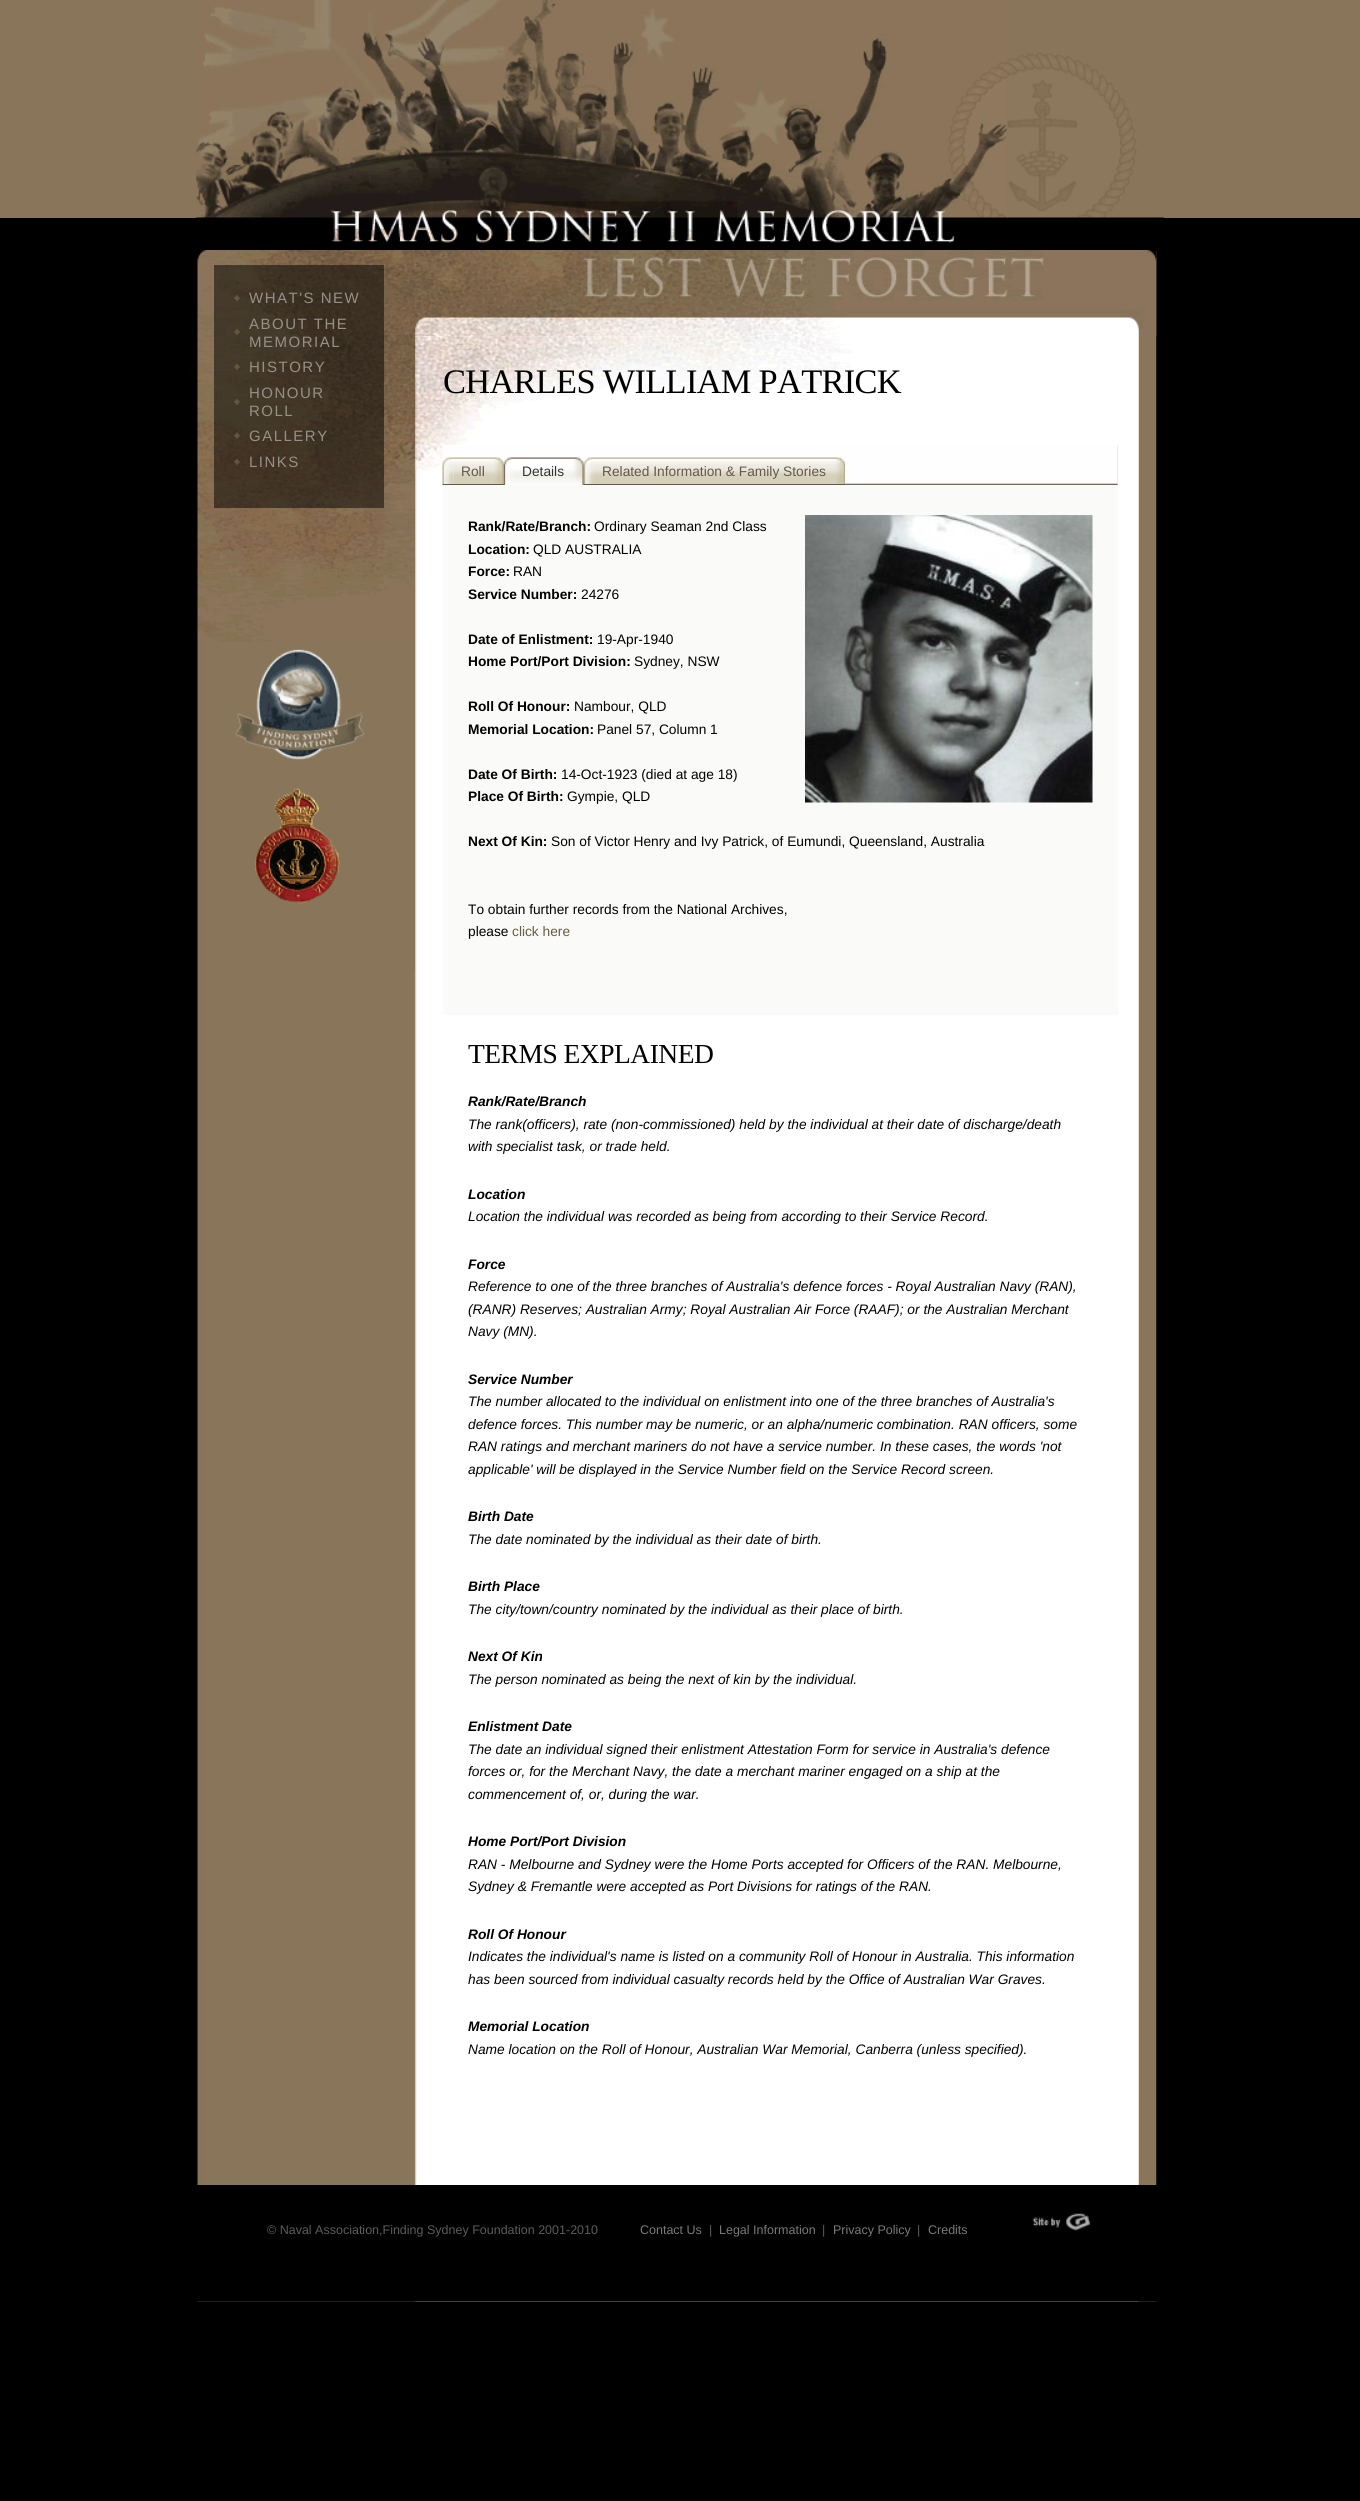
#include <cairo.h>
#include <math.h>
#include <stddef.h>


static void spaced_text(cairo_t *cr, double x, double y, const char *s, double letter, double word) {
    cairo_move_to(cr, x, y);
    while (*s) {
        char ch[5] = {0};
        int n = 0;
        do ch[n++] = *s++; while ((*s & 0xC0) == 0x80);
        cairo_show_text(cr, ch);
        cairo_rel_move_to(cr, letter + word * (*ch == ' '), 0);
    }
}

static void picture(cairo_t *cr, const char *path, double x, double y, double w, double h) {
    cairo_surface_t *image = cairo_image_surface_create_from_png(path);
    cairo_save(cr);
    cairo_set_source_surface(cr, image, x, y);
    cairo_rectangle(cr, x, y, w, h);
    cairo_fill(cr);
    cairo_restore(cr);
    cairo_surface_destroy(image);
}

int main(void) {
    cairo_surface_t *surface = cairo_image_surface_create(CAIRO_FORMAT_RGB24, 1360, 2501);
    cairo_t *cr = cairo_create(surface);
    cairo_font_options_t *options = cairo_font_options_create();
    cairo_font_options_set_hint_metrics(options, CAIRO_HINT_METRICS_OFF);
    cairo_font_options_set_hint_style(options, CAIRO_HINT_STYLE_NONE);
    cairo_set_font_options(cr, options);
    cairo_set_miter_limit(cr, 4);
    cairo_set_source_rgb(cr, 0, 0, 0);
    cairo_paint(cr);
    cairo_set_source_rgb(cr, 0.537, 0.459, 0.353);
    cairo_rectangle(cr, 0, 0, 1360, 218);
    cairo_fill(cr);
    picture(cr, "img1.png", 196, 0, 812, 243);
    picture(cr, "img2.png", 1007, 53, 157, 165);
    picture(cr, "img3.png", 197, 250, 960, 2052);
    cairo_rectangle(cr, 414, 642, 1, 330);
    cairo_fill(cr);
    picture(cr, "img4.png", 197, 250, 218, 392);
    cairo_set_source_rgba(cr, 0, 0, 0, 0.5);
    cairo_rectangle(cr, 214, 265, 170, 243);
    cairo_fill(cr);
    picture(cr, "img5.png", 234, 295, 6, 7);
    cairo_select_font_face(cr, "Liberation Sans", CAIRO_FONT_SLANT_NORMAL, CAIRO_FONT_WEIGHT_NORMAL);
    cairo_set_font_size(cr, 15);
    cairo_set_source_rgb(cr, 0.588, 0.565, 0.537);
    spaced_text(cr, 249, 303, "WHAT'S NEW", 1.5, 0);
    picture(cr, "img6.png", 234, 328, 6, 7);
    spaced_text(cr, 249, 329, "ABOUT THE", 1.5, 0);
    spaced_text(cr, 249, 347, "MEMORIAL", 1.5, 0);
    picture(cr, "img7.png", 234, 363, 6, 7);
    spaced_text(cr, 249, 372, "HISTORY", 1.5, 0);
    picture(cr, "img8.png", 234, 398, 6, 7);
    spaced_text(cr, 249, 398, "HONOUR", 1.5, 0);
    spaced_text(cr, 249, 416, "ROLL", 1.5, 0);
    picture(cr, "img9.png", 234, 432, 6, 7);
    spaced_text(cr, 249, 441, "GALLERY", 1.5, 0);
    picture(cr, "img10.png", 234, 458, 6, 7);
    spaced_text(cr, 249, 467, "LINKS", 1.5, 0);
    picture(cr, "img11.png", 235, 649, 130, 111);
    picture(cr, "img12.png", 255, 788, 85, 116);
    picture(cr, "img13.png", 415, 250, 742, 87);
    picture(cr, "img14.png", 415, 336, 438, 134);
    cairo_select_font_face(cr, "Liberation Serif", CAIRO_FONT_SLANT_NORMAL, CAIRO_FONT_WEIGHT_NORMAL);
    cairo_set_font_size(cr, 34.4);
    cairo_set_source_rgb(cr, 0, 0, 0);
    spaced_text(cr, 443, 393, "CHARLES WILLIAM PATRICK", -0.7, 0);
    cairo_set_source_rgb(cr, 0.855, 0.878, 0.824);
    cairo_rectangle(cr, 1117, 445, 1, 40);
    cairo_fill(cr);
    picture(cr, "img15.png", 442, 445, 676, 40);
    picture(cr, "img16.png", 442, 457, 12, 28);
    cairo_set_source_rgb(cr, 0.4, 0.337, 0.275);
    cairo_rectangle(cr, 443, 484, 61, 1);
    cairo_fill(cr);
    picture(cr, "img17.png", 453, 457, 51, 27);
    cairo_select_font_face(cr, "Liberation Sans", CAIRO_FONT_SLANT_NORMAL, CAIRO_FONT_WEIGHT_NORMAL);
    cairo_set_font_size(cr, 13.75);
    cairo_move_to(cr, 461, 476);
    cairo_show_text(cr, "Roll");
    picture(cr, "img18.png", 503, 457, 12, 28);
    picture(cr, "img19.png", 515, 457, 69, 28);
    cairo_set_source_rgb(cr, 0.2, 0.2, 0.2);
    cairo_move_to(cr, 522, 476);
    cairo_show_text(cr, "Details");
    picture(cr, "img20.png", 583, 457, 12, 28);
    cairo_set_source_rgb(cr, 0.4, 0.337, 0.275);
    cairo_rectangle(cr, 584, 484, 261, 1);
    cairo_fill(cr);
    picture(cr, "img21.png", 595, 457, 250, 27);
    cairo_move_to(cr, 602, 476);
    cairo_show_text(cr, "Related Information & Family Stories");
    cairo_set_source_rgb(cr, 0.98, 0.98, 0.973);
    cairo_rectangle(cr, 443, 485, 675, 530);
    cairo_fill(cr);
    cairo_select_font_face(cr, "Liberation Sans", CAIRO_FONT_SLANT_NORMAL, CAIRO_FONT_WEIGHT_BOLD);
    cairo_set_source_rgb(cr, 0, 0, 0);
    cairo_move_to(cr, 468, 531);
    cairo_show_text(cr, "Rank/Rate/Branch:");
    cairo_select_font_face(cr, "Liberation Sans", CAIRO_FONT_SLANT_NORMAL, CAIRO_FONT_WEIGHT_NORMAL);
    cairo_move_to(cr, 594, 531);
    cairo_show_text(cr, "Ordinary Seaman 2nd Class");
    picture(cr, "img22.png", 805, 515, 288, 288);
    cairo_select_font_face(cr, "Liberation Sans", CAIRO_FONT_SLANT_NORMAL, CAIRO_FONT_WEIGHT_BOLD);
    cairo_move_to(cr, 468, 554);
    cairo_show_text(cr, "Location:");
    cairo_select_font_face(cr, "Liberation Sans", CAIRO_FONT_SLANT_NORMAL, CAIRO_FONT_WEIGHT_NORMAL);
    cairo_move_to(cr, 533, 554);
    cairo_show_text(cr, "QLD AUSTRALIA");
    cairo_select_font_face(cr, "Liberation Sans", CAIRO_FONT_SLANT_NORMAL, CAIRO_FONT_WEIGHT_BOLD);
    cairo_move_to(cr, 468, 576);
    cairo_show_text(cr, "Force:");
    cairo_select_font_face(cr, "Liberation Sans", CAIRO_FONT_SLANT_NORMAL, CAIRO_FONT_WEIGHT_NORMAL);
    cairo_move_to(cr, 513, 576);
    cairo_show_text(cr, "RAN");
    cairo_select_font_face(cr, "Liberation Sans", CAIRO_FONT_SLANT_NORMAL, CAIRO_FONT_WEIGHT_BOLD);
    cairo_move_to(cr, 468, 599);
    cairo_show_text(cr, "Service Number:");
    cairo_select_font_face(cr, "Liberation Sans", CAIRO_FONT_SLANT_NORMAL, CAIRO_FONT_WEIGHT_NORMAL);
    cairo_move_to(cr, 581, 599);
    cairo_show_text(cr, "24276");
    cairo_select_font_face(cr, "Liberation Sans", CAIRO_FONT_SLANT_NORMAL, CAIRO_FONT_WEIGHT_BOLD);
    cairo_move_to(cr, 468, 644);
    cairo_show_text(cr, "Date of Enlistment:");
    cairo_select_font_face(cr, "Liberation Sans", CAIRO_FONT_SLANT_NORMAL, CAIRO_FONT_WEIGHT_NORMAL);
    cairo_move_to(cr, 597, 644);
    cairo_show_text(cr, "19-Apr-1940");
    cairo_select_font_face(cr, "Liberation Sans", CAIRO_FONT_SLANT_NORMAL, CAIRO_FONT_WEIGHT_BOLD);
    cairo_move_to(cr, 468, 666);
    cairo_show_text(cr, "Home Port/Port Division:");
    cairo_select_font_face(cr, "Liberation Sans", CAIRO_FONT_SLANT_NORMAL, CAIRO_FONT_WEIGHT_NORMAL);
    cairo_move_to(cr, 634, 666);
    cairo_show_text(cr, "Sydney, NSW");
    cairo_select_font_face(cr, "Liberation Sans", CAIRO_FONT_SLANT_NORMAL, CAIRO_FONT_WEIGHT_BOLD);
    cairo_move_to(cr, 468, 711);
    cairo_show_text(cr, "Roll Of Honour:");
    cairo_select_font_face(cr, "Liberation Sans", CAIRO_FONT_SLANT_NORMAL, CAIRO_FONT_WEIGHT_NORMAL);
    cairo_move_to(cr, 574, 711);
    cairo_show_text(cr, "Nambour, QLD");
    cairo_select_font_face(cr, "Liberation Sans", CAIRO_FONT_SLANT_NORMAL, CAIRO_FONT_WEIGHT_BOLD);
    cairo_move_to(cr, 468, 734);
    cairo_show_text(cr, "Memorial Location:");
    cairo_select_font_face(cr, "Liberation Sans", CAIRO_FONT_SLANT_NORMAL, CAIRO_FONT_WEIGHT_NORMAL);
    cairo_move_to(cr, 597, 734);
    cairo_show_text(cr, "Panel 57, Column 1");
    cairo_select_font_face(cr, "Liberation Sans", CAIRO_FONT_SLANT_NORMAL, CAIRO_FONT_WEIGHT_BOLD);
    cairo_move_to(cr, 468, 779);
    cairo_show_text(cr, "Date Of Birth:");
    cairo_select_font_face(cr, "Liberation Sans", CAIRO_FONT_SLANT_NORMAL, CAIRO_FONT_WEIGHT_NORMAL);
    cairo_move_to(cr, 561, 779);
    cairo_show_text(cr, "14-Oct-1923 (died at age 18)");
    cairo_select_font_face(cr, "Liberation Sans", CAIRO_FONT_SLANT_NORMAL, CAIRO_FONT_WEIGHT_BOLD);
    cairo_move_to(cr, 468, 801);
    cairo_show_text(cr, "Place Of Birth:");
    cairo_select_font_face(cr, "Liberation Sans", CAIRO_FONT_SLANT_NORMAL, CAIRO_FONT_WEIGHT_NORMAL);
    cairo_move_to(cr, 567, 801);
    cairo_show_text(cr, "Gympie, QLD");
    cairo_select_font_face(cr, "Liberation Sans", CAIRO_FONT_SLANT_NORMAL, CAIRO_FONT_WEIGHT_BOLD);
    cairo_move_to(cr, 468, 846);
    cairo_show_text(cr, "Next Of Kin:");
    cairo_select_font_face(cr, "Liberation Sans", CAIRO_FONT_SLANT_NORMAL, CAIRO_FONT_WEIGHT_NORMAL);
    cairo_move_to(cr, 551, 846);
    cairo_show_text(cr, "Son of Victor Henry and Ivy Patrick, of Eumundi, Queensland, Australia");
    cairo_move_to(cr, 468, 914);
    cairo_show_text(cr, "To obtain further records from the National Archives,");
    cairo_move_to(cr, 468, 936);
    cairo_show_text(cr, "please");
    cairo_set_source_rgb(cr, 0.416, 0.365, 0.251);
    cairo_move_to(cr, 512, 936);
    cairo_show_text(cr, "click here");
    cairo_select_font_face(cr, "Liberation Serif", CAIRO_FONT_SLANT_NORMAL, CAIRO_FONT_WEIGHT_NORMAL);
    cairo_set_font_size(cr, 27.5);
    cairo_set_source_rgb(cr, 0, 0, 0);
    spaced_text(cr, 468, 1063, "TERMS EXPLAINED", -0.5, 0);
    cairo_select_font_face(cr, "Liberation Sans", CAIRO_FONT_SLANT_ITALIC, CAIRO_FONT_WEIGHT_BOLD);
    cairo_set_font_size(cr, 13.75);
    cairo_move_to(cr, 468, 1106);
    cairo_show_text(cr, "Rank/Rate/Branch");
    cairo_select_font_face(cr, "Liberation Sans", CAIRO_FONT_SLANT_ITALIC, CAIRO_FONT_WEIGHT_NORMAL);
    cairo_move_to(cr, 468, 1129);
    cairo_show_text(cr, "The rank(officers), rate (non-commissioned) held by the individual at their date of discharge/death");
    cairo_move_to(cr, 468, 1151);
    cairo_show_text(cr, "with specialist task, or trade held.");
    cairo_select_font_face(cr, "Liberation Sans", CAIRO_FONT_SLANT_ITALIC, CAIRO_FONT_WEIGHT_BOLD);
    cairo_move_to(cr, 468, 1199);
    cairo_show_text(cr, "Location");
    cairo_select_font_face(cr, "Liberation Sans", CAIRO_FONT_SLANT_ITALIC, CAIRO_FONT_WEIGHT_NORMAL);
    cairo_move_to(cr, 468, 1221);
    cairo_show_text(cr, "Location the individual was recorded as being from according to their Service Record.");
    cairo_select_font_face(cr, "Liberation Sans", CAIRO_FONT_SLANT_ITALIC, CAIRO_FONT_WEIGHT_BOLD);
    cairo_move_to(cr, 468, 1269);
    cairo_show_text(cr, "Force");
    cairo_select_font_face(cr, "Liberation Sans", CAIRO_FONT_SLANT_ITALIC, CAIRO_FONT_WEIGHT_NORMAL);
    cairo_move_to(cr, 468, 1291);
    cairo_show_text(cr, "Reference to one of the three branches of Australia's defence forces - Royal Australian Navy (RAN),");
    cairo_move_to(cr, 468, 1314);
    cairo_show_text(cr, "(RANR) Reserves; Australian Army; Royal Australian Air Force (RAAF); or the Australian Merchant");
    cairo_move_to(cr, 468, 1336);
    cairo_show_text(cr, "Navy (MN).");
    cairo_select_font_face(cr, "Liberation Sans", CAIRO_FONT_SLANT_ITALIC, CAIRO_FONT_WEIGHT_BOLD);
    cairo_move_to(cr, 468, 1384);
    cairo_show_text(cr, "Service Number");
    cairo_select_font_face(cr, "Liberation Sans", CAIRO_FONT_SLANT_ITALIC, CAIRO_FONT_WEIGHT_NORMAL);
    cairo_move_to(cr, 468, 1406);
    cairo_show_text(cr, "The number allocated to the individual on enlistment into one of the three branches of Australia's");
    cairo_move_to(cr, 468, 1429);
    cairo_show_text(cr, "defence forces. This number may be numeric, or an alpha/numeric combination. RAN officers, some");
    cairo_move_to(cr, 468, 1451);
    cairo_show_text(cr, "RAN ratings and merchant mariners do not have a service number. In these cases, the words 'not");
    cairo_move_to(cr, 468, 1474);
    cairo_show_text(cr, "applicable' will be displayed in the Service Number field on the Service Record screen.");
    cairo_select_font_face(cr, "Liberation Sans", CAIRO_FONT_SLANT_ITALIC, CAIRO_FONT_WEIGHT_BOLD);
    cairo_move_to(cr, 468, 1521);
    cairo_show_text(cr, "Birth Date");
    cairo_select_font_face(cr, "Liberation Sans", CAIRO_FONT_SLANT_ITALIC, CAIRO_FONT_WEIGHT_NORMAL);
    cairo_move_to(cr, 468, 1544);
    cairo_show_text(cr, "The date nominated by the individual as their date of birth.");
    cairo_select_font_face(cr, "Liberation Sans", CAIRO_FONT_SLANT_ITALIC, CAIRO_FONT_WEIGHT_BOLD);
    cairo_move_to(cr, 468, 1591);
    cairo_show_text(cr, "Birth Place");
    cairo_select_font_face(cr, "Liberation Sans", CAIRO_FONT_SLANT_ITALIC, CAIRO_FONT_WEIGHT_NORMAL);
    cairo_move_to(cr, 468, 1614);
    cairo_show_text(cr, "The city/town/country nominated by the individual as their place of birth.");
    cairo_select_font_face(cr, "Liberation Sans", CAIRO_FONT_SLANT_ITALIC, CAIRO_FONT_WEIGHT_BOLD);
    cairo_move_to(cr, 468, 1661);
    cairo_show_text(cr, "Next Of Kin");
    cairo_select_font_face(cr, "Liberation Sans", CAIRO_FONT_SLANT_ITALIC, CAIRO_FONT_WEIGHT_NORMAL);
    cairo_move_to(cr, 468, 1684);
    cairo_show_text(cr, "The person nominated as being the next of kin by the individual.");
    cairo_select_font_face(cr, "Liberation Sans", CAIRO_FONT_SLANT_ITALIC, CAIRO_FONT_WEIGHT_BOLD);
    cairo_move_to(cr, 468, 1731);
    cairo_show_text(cr, "Enlistment Date");
    cairo_select_font_face(cr, "Liberation Sans", CAIRO_FONT_SLANT_ITALIC, CAIRO_FONT_WEIGHT_NORMAL);
    cairo_move_to(cr, 468, 1754);
    cairo_show_text(cr, "The date an individual signed their enlistment Attestation Form for service in Australia's defence");
    cairo_move_to(cr, 468, 1776);
    cairo_show_text(cr, "forces or, for the Merchant Navy, the date a merchant mariner engaged on a ship at the");
    cairo_move_to(cr, 468, 1799);
    cairo_show_text(cr, "commencement of, or, during the war.");
    cairo_select_font_face(cr, "Liberation Sans", CAIRO_FONT_SLANT_ITALIC, CAIRO_FONT_WEIGHT_BOLD);
    cairo_move_to(cr, 468, 1846);
    cairo_show_text(cr, "Home Port/Port Division");
    cairo_select_font_face(cr, "Liberation Sans", CAIRO_FONT_SLANT_ITALIC, CAIRO_FONT_WEIGHT_NORMAL);
    cairo_move_to(cr, 468, 1869);
    cairo_show_text(cr, "RAN - Melbourne and Sydney were the Home Ports accepted for Officers of the RAN. Melbourne,");
    cairo_move_to(cr, 468, 1891);
    cairo_show_text(cr, "Sydney & Fremantle were accepted as Port Divisions for ratings of the RAN.");
    cairo_select_font_face(cr, "Liberation Sans", CAIRO_FONT_SLANT_ITALIC, CAIRO_FONT_WEIGHT_BOLD);
    cairo_move_to(cr, 468, 1939);
    cairo_show_text(cr, "Roll Of Honour");
    cairo_select_font_face(cr, "Liberation Sans", CAIRO_FONT_SLANT_ITALIC, CAIRO_FONT_WEIGHT_NORMAL);
    cairo_move_to(cr, 468, 1961);
    cairo_show_text(cr, "Indicates the individual's name is listed on a community Roll of Honour in Australia. This information");
    cairo_move_to(cr, 468, 1984);
    cairo_show_text(cr, "has been sourced from individual casualty records held by the Office of Australian War Graves.");
    cairo_select_font_face(cr, "Liberation Sans", CAIRO_FONT_SLANT_ITALIC, CAIRO_FONT_WEIGHT_BOLD);
    cairo_move_to(cr, 468, 2031);
    cairo_show_text(cr, "Memorial Location");
    cairo_select_font_face(cr, "Liberation Sans", CAIRO_FONT_SLANT_ITALIC, CAIRO_FONT_WEIGHT_NORMAL);
    cairo_move_to(cr, 468, 2054);
    cairo_show_text(cr, "Name location on the Roll of Honour, Australian War Memorial, Canberra (unless specified).");
    cairo_rectangle(cr, 197, 2185, 960, 116);
    cairo_fill(cr);
    cairo_select_font_face(cr, "Liberation Sans", CAIRO_FONT_SLANT_NORMAL, CAIRO_FONT_WEIGHT_NORMAL);
    cairo_set_font_size(cr, 12.5);
    cairo_set_source_rgb(cr, 0.361, 0.361, 0.361);
    cairo_move_to(cr, 267, 2234);
    cairo_show_text(cr, "© Naval Association,Finding Sydney Foundation 2001-2010");
    cairo_set_source_rgb(cr, 0.478, 0.478, 0.478);
    cairo_move_to(cr, 640, 2234);
    cairo_show_text(cr, "Contact Us");
    cairo_set_source_rgb(cr, 0.361, 0.361, 0.361);
    cairo_move_to(cr, 709, 2234);
    cairo_show_text(cr, "|");
    cairo_set_source_rgb(cr, 0.478, 0.478, 0.478);
    cairo_move_to(cr, 719, 2234);
    cairo_show_text(cr, "Legal Information");
    cairo_set_source_rgb(cr, 0.361, 0.361, 0.361);
    cairo_move_to(cr, 822, 2234);
    cairo_show_text(cr, "|");
    cairo_set_source_rgb(cr, 0.478, 0.478, 0.478);
    cairo_move_to(cr, 833, 2234);
    cairo_show_text(cr, "Privacy Policy");
    cairo_set_source_rgb(cr, 0.361, 0.361, 0.361);
    cairo_move_to(cr, 917, 2234);
    cairo_show_text(cr, "|");
    cairo_set_source_rgb(cr, 0.478, 0.478, 0.478);
    cairo_move_to(cr, 928, 2234);
    cairo_show_text(cr, "Credits");
    picture(cr, "img23.png", 1032, 2213, 59, 18);
    cairo_surface_write_to_png(surface, "page.png");
    cairo_font_options_destroy(options);
    cairo_destroy(cr);
    cairo_surface_destroy(surface);
    return 0;
}
